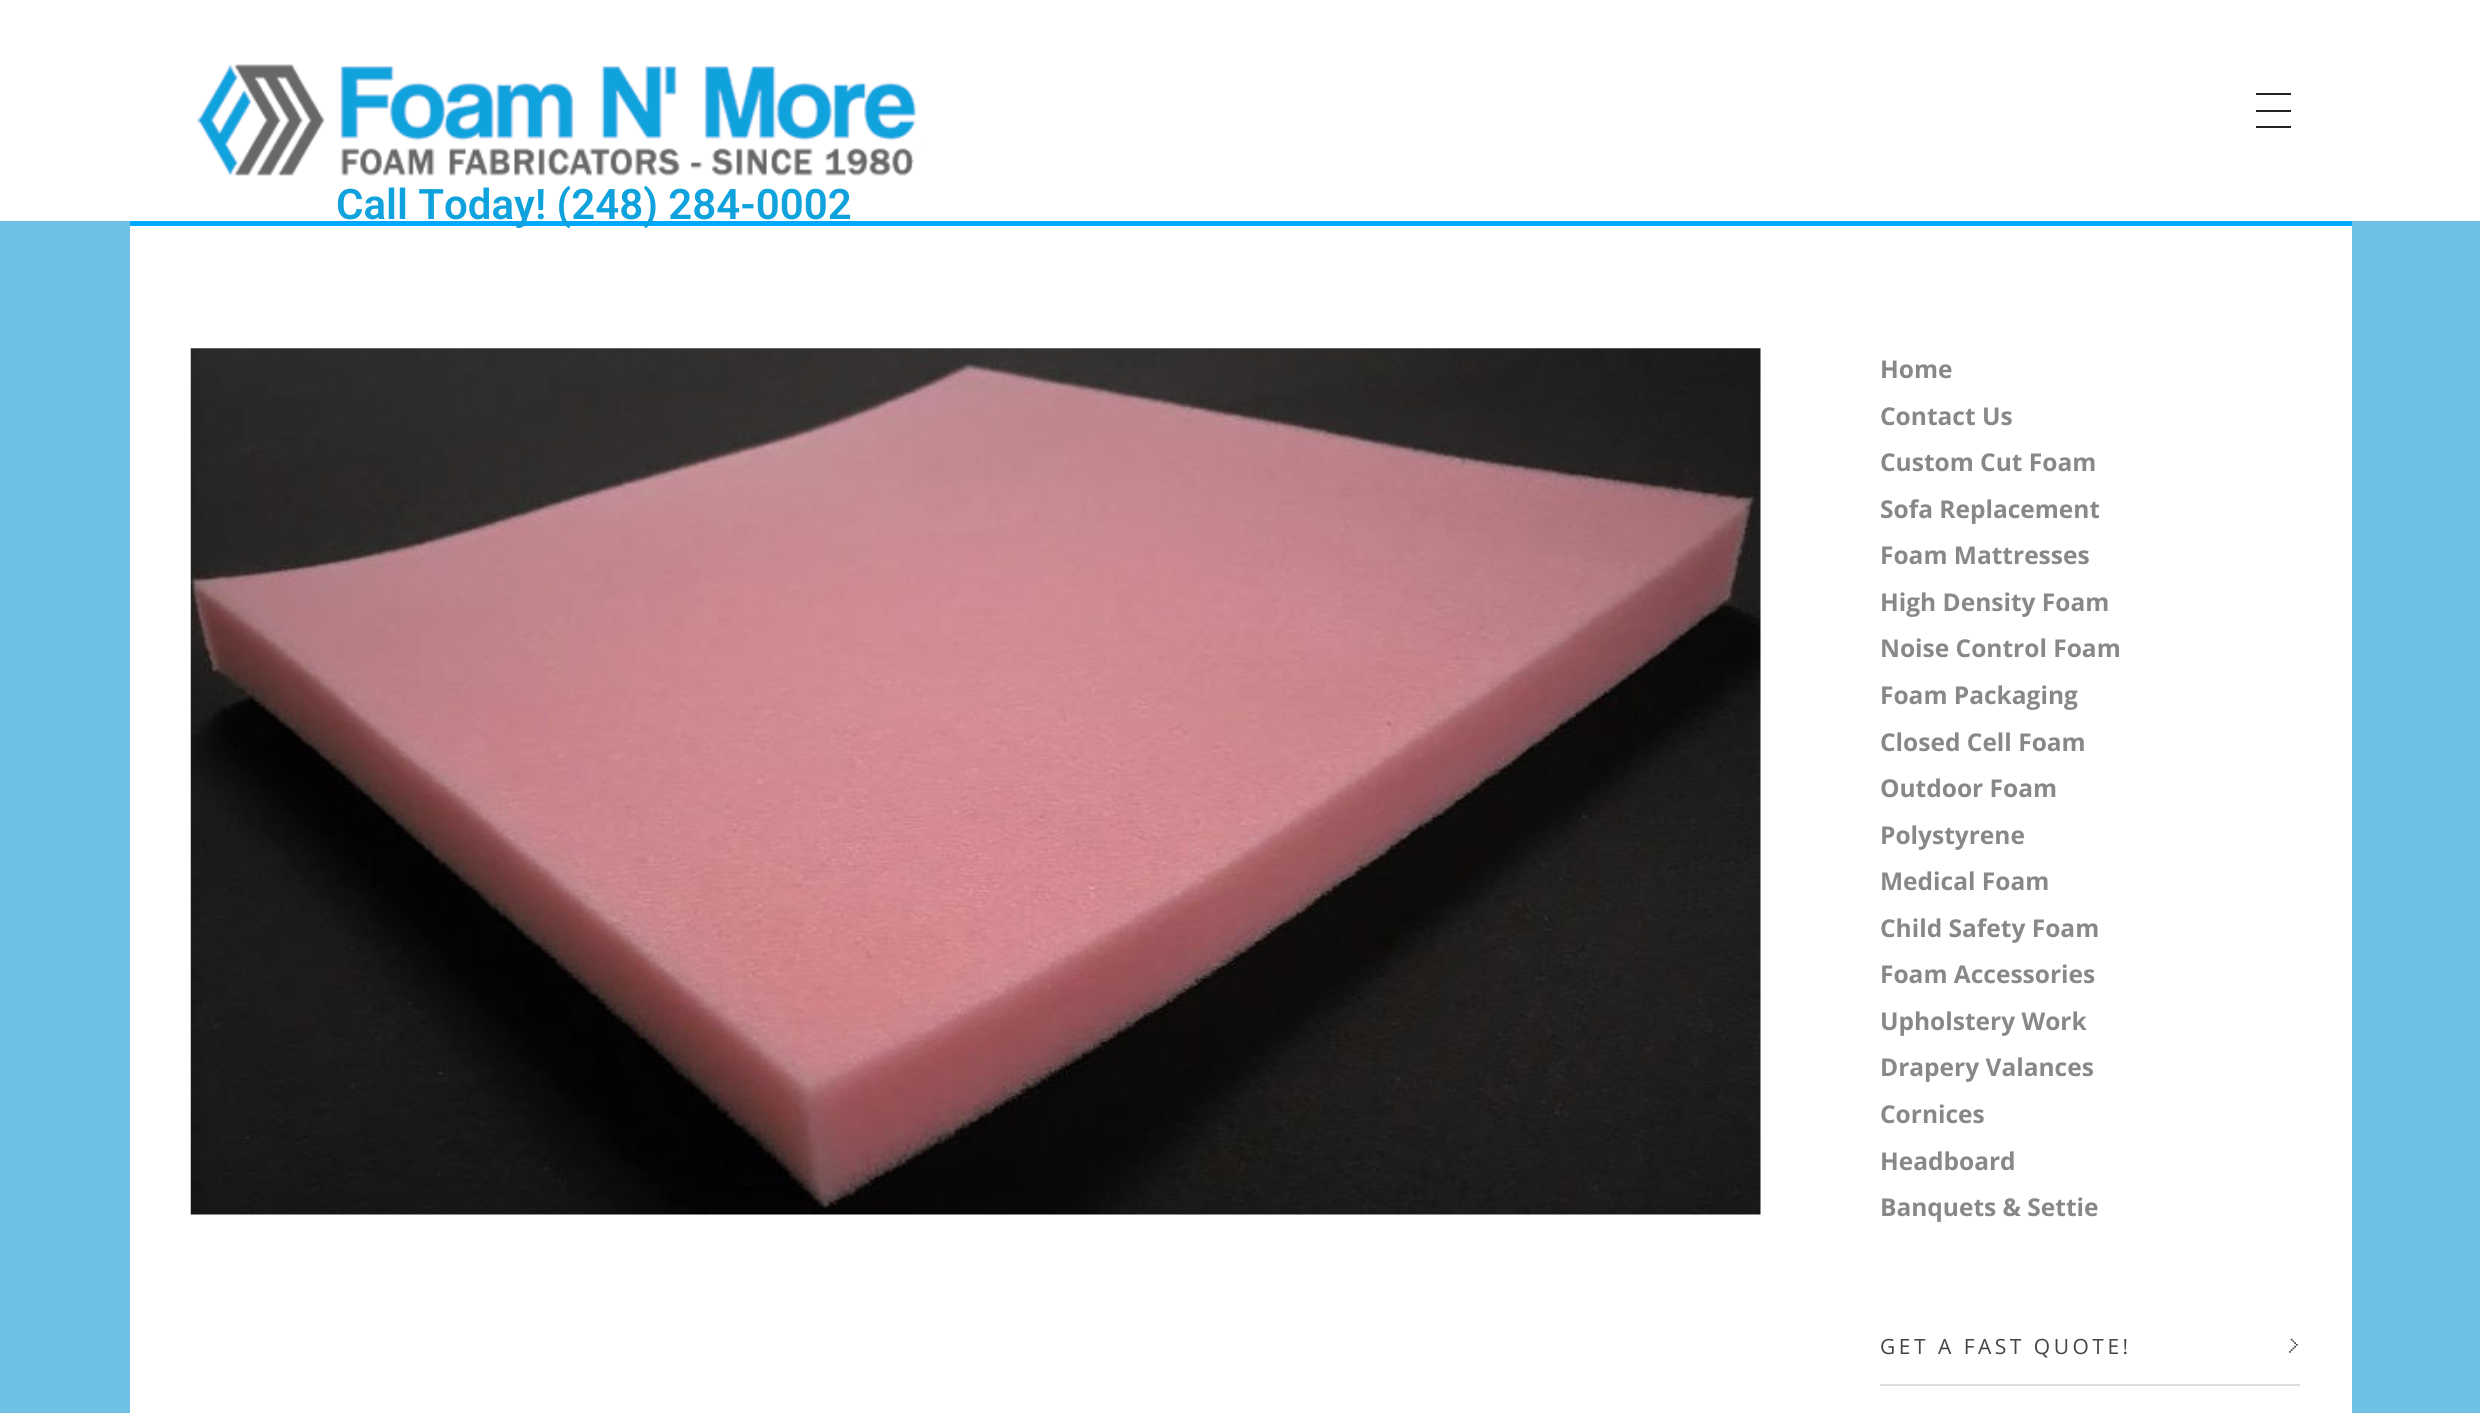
#include <cairo.h>
#include <math.h>
#include <stddef.h>


static void spaced_text(cairo_t *cr, double x, double y, const char *s, double letter, double word) {
    cairo_move_to(cr, x, y);
    while (*s) {
        char ch[5] = {0};
        int n = 0;
        do ch[n++] = *s++; while ((*s & 0xC0) == 0x80);
        cairo_show_text(cr, ch);
        cairo_rel_move_to(cr, letter + word * (*ch == ' '), 0);
    }
}

static void picture(cairo_t *cr, const char *path, double x, double y, double w, double h) {
    cairo_surface_t *image = cairo_image_surface_create_from_png(path);
    cairo_save(cr);
    cairo_set_source_surface(cr, image, x, y);
    cairo_rectangle(cr, x, y, w, h);
    cairo_fill(cr);
    cairo_restore(cr);
    cairo_surface_destroy(image);
}

int main(void) {
    cairo_surface_t *surface = cairo_image_surface_create(CAIRO_FORMAT_RGB24, 2480, 1413);
    cairo_t *cr = cairo_create(surface);
    cairo_font_options_t *options = cairo_font_options_create();
    cairo_font_options_set_hint_metrics(options, CAIRO_HINT_METRICS_OFF);
    cairo_font_options_set_hint_style(options, CAIRO_HINT_STYLE_NONE);
    cairo_set_font_options(cr, options);
    cairo_set_miter_limit(cr, 4);
    cairo_set_source_rgb(cr, 1, 1, 1);
    cairo_paint(cr);
    cairo_set_source_rgb(cr, 0.133, 0.133, 0.133);
    cairo_rectangle(cr, 2256, 93, 35, 2);
    cairo_fill(cr);
    cairo_rectangle(cr, 2256, 110, 35, 2);
    cairo_fill(cr);
    cairo_rectangle(cr, 2256, 126, 35, 2);
    cairo_fill(cr);
    picture(cr, "img1.png", 197, 64, 727, 112);
    cairo_set_source_rgb(cr, 0.431, 0.757, 0.894);
    cairo_rectangle(cr, 0, 221, 2480, 1192);
    cairo_fill(cr);
    cairo_set_source_rgb(cr, 1, 1, 1);
    cairo_rectangle(cr, 130, 226, 2222, 1187);
    cairo_fill(cr);
    cairo_set_source_rgb(cr, 0, 0.659, 1);
    cairo_rectangle(cr, 130, 221, 2222, 5);
    cairo_fill(cr);
    cairo_select_font_face(cr, "Roboto SemiBold", CAIRO_FONT_SLANT_NORMAL, CAIRO_FONT_WEIGHT_NORMAL);
    cairo_set_font_size(cr, 42);
    cairo_set_source_rgb(cr, 0.063, 0.635, 0.867);
    cairo_move_to(cr, 336, 219);
    cairo_show_text(cr, "Call Today! (248) 284-0002");
    picture(cr, "img2.png", 190, 348, 1571, 867);
    cairo_select_font_face(cr, "Open Sans", CAIRO_FONT_SLANT_NORMAL, CAIRO_FONT_WEIGHT_BOLD);
    cairo_set_font_size(cr, 24.5);
    cairo_set_source_rgb(cr, 0.533, 0.533, 0.533);
    cairo_move_to(cr, 1880, 378);
    cairo_show_text(cr, "Home");
    cairo_move_to(cr, 1880, 425);
    cairo_show_text(cr, "Contact Us");
    cairo_move_to(cr, 1880, 471);
    cairo_show_text(cr, "Custom Cut Foam");
    cairo_move_to(cr, 1880, 518);
    cairo_show_text(cr, "Sofa Replacement");
    cairo_move_to(cr, 1880, 564);
    cairo_show_text(cr, "Foam Mattresses");
    cairo_move_to(cr, 1880, 611);
    cairo_show_text(cr, "High Density Foam");
    cairo_move_to(cr, 1880, 657);
    cairo_show_text(cr, "Noise Control Foam");
    cairo_move_to(cr, 1880, 704);
    cairo_show_text(cr, "Foam Packaging");
    cairo_move_to(cr, 1880, 751);
    cairo_show_text(cr, "Closed Cell Foam");
    cairo_move_to(cr, 1880, 797);
    cairo_show_text(cr, "Outdoor Foam");
    cairo_move_to(cr, 1880, 844);
    cairo_show_text(cr, "Polystyrene");
    cairo_move_to(cr, 1880, 890);
    cairo_show_text(cr, "Medical Foam");
    cairo_move_to(cr, 1880, 937);
    cairo_show_text(cr, "Child Safety Foam");
    cairo_move_to(cr, 1880, 983);
    cairo_show_text(cr, "Foam Accessories");
    cairo_move_to(cr, 1880, 1030);
    cairo_show_text(cr, "Upholstery Work");
    cairo_move_to(cr, 1880, 1076);
    cairo_show_text(cr, "Drapery Valances");
    cairo_move_to(cr, 1880, 1123);
    cairo_show_text(cr, "Cornices");
    cairo_move_to(cr, 1880, 1170);
    cairo_show_text(cr, "Headboard");
    cairo_move_to(cr, 1880, 1216);
    cairo_show_text(cr, "Banquets & Settie");
    cairo_set_source_rgb(cr, 0.871, 0.871, 0.871);
    cairo_rectangle(cr, 1880, 1384, 420, 2);
    cairo_fill(cr);
    cairo_select_font_face(cr, "Open Sans", CAIRO_FONT_SLANT_NORMAL, CAIRO_FONT_WEIGHT_NORMAL);
    cairo_set_font_size(cr, 21);
    cairo_set_source_rgb(cr, 0.267, 0.267, 0.267);
    spaced_text(cr, 1880, 1354, "GET A FAST QUOTE!", 3.5, 0);
    picture(cr, "img3.png", 2289, 1338, 9, 15);
    cairo_surface_write_to_png(surface, "page.png");
    cairo_font_options_destroy(options);
    cairo_destroy(cr);
    cairo_surface_destroy(surface);
    return 0;
}
